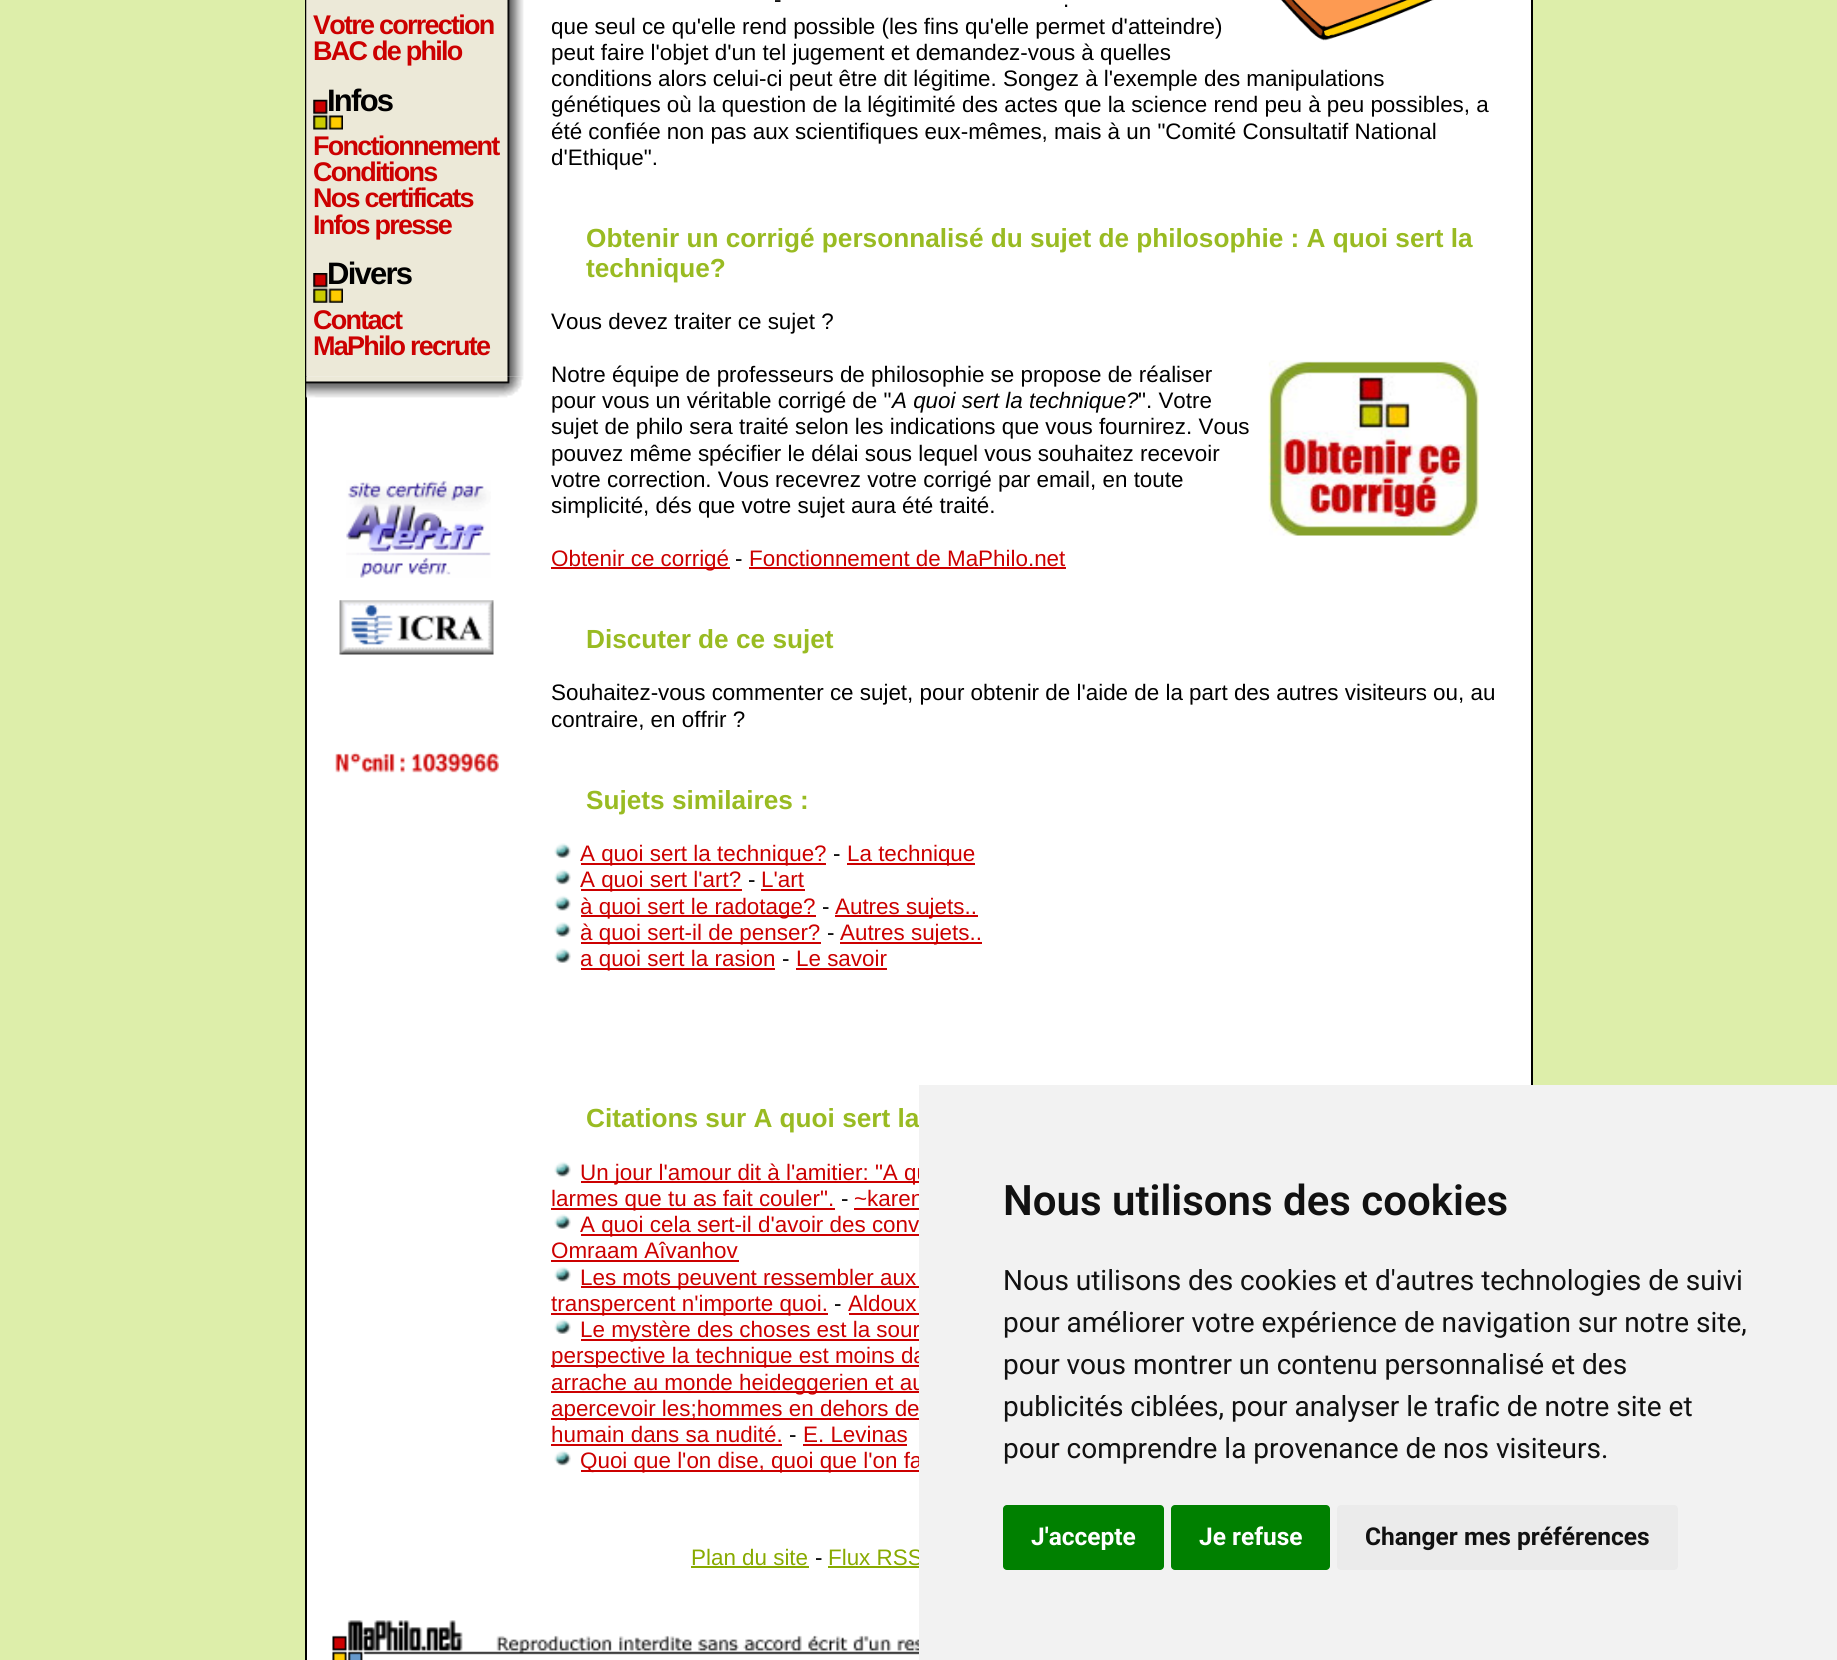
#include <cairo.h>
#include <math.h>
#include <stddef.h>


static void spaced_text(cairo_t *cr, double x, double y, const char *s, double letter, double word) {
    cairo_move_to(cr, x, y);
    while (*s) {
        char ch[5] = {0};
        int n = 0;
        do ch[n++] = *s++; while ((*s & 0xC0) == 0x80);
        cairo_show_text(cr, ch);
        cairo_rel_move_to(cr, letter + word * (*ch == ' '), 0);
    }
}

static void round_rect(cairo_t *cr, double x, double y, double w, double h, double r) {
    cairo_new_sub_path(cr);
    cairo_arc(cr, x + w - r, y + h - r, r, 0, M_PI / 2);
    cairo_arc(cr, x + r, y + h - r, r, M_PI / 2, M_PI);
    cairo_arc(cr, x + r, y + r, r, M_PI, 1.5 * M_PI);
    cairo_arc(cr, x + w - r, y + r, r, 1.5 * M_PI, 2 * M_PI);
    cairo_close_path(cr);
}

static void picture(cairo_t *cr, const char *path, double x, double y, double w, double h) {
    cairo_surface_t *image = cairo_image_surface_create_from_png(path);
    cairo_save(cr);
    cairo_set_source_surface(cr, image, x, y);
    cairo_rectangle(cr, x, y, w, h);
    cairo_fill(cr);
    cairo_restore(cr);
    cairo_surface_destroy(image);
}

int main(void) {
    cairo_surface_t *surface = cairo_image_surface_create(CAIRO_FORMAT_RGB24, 1837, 1660);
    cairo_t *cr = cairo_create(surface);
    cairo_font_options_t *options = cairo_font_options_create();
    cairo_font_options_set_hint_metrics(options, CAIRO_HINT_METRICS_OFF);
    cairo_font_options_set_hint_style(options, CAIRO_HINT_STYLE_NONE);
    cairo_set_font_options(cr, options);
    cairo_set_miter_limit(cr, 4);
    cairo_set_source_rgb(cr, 0.867, 0.933, 0.667);
    cairo_paint(cr);
    cairo_set_source_rgb(cr, 1, 1, 1);
    cairo_rectangle(cr, 306, -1, 1226, 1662);
    cairo_fill_preserve(cr);
    cairo_set_source_rgb(cr, 0, 0, 0);
    cairo_stroke(cr);
    picture(cr, "img4.png", 306, 376, 218, 22);
    picture(cr, "img1.png", 306, 0, 218, 377);
    cairo_select_font_face(cr, "Liberation Sans", CAIRO_FONT_SLANT_NORMAL, CAIRO_FONT_WEIGHT_BOLD);
    cairo_set_font_size(cr, 27);
    cairo_set_source_rgb(cr, 0.8, 0, 0);
    spaced_text(cr, 313, 34, "Votre correction", -1.75, 0);
    spaced_text(cr, 313, 60, "BAC de philo", -1.75, 0);
    picture(cr, "img2.png", 313, 99, 30, 31);
    cairo_set_font_size(cr, 31);
    cairo_set_source_rgb(cr, 0, 0, 0);
    spaced_text(cr, 327, 111, "Infos", -1.75, 0);
    cairo_set_font_size(cr, 27);
    cairo_set_source_rgb(cr, 0.8, 0, 0);
    spaced_text(cr, 313, 155, "Fonctionnement", -1.75, 0);
    spaced_text(cr, 313, 181, "Conditions", -1.75, 0);
    spaced_text(cr, 313, 207, "Nos certificats", -1.75, 0);
    spaced_text(cr, 313, 234, "Infos presse", -1.75, 0);
    picture(cr, "img3.png", 313, 273, 30, 30);
    cairo_set_font_size(cr, 31);
    cairo_set_source_rgb(cr, 0, 0, 0);
    spaced_text(cr, 327, 284, "Divers", -1.75, 0);
    cairo_set_font_size(cr, 27);
    cairo_set_source_rgb(cr, 0.8, 0, 0);
    spaced_text(cr, 313, 329, "Contact", -1.75, 0);
    spaced_text(cr, 313, 355, "MaPhilo recrute", -1.75, 0);
    picture(cr, "img5.png", 346, 480, 145, 98);
    picture(cr, "img6.png", 339, 600, 155, 55);
    picture(cr, "img7.png", 335, 752, 164, 21);
    cairo_select_font_face(cr, "Liberation Sans", CAIRO_FONT_SLANT_NORMAL, CAIRO_FONT_WEIGHT_NORMAL);
    cairo_set_font_size(cr, 22.4);
    cairo_set_source_rgb(cr, 0, 0, 0);
    cairo_move_to(cr, 774, 7);
    cairo_show_text(cr, "-");
    cairo_move_to(cr, 1063, 7);
    cairo_show_text(cr, ".");
    picture(cr, "img8.png", 1280, 0, 154, 41);
    cairo_move_to(cr, 551, 34);
    cairo_show_text(cr, "que seul ce qu'elle rend possible (les fins qu'elle permet d'atteindre)");
    cairo_move_to(cr, 551, 60);
    cairo_show_text(cr, "peut faire l'objet d'un tel jugement et demandez-vous à quelles");
    cairo_move_to(cr, 551, 86);
    cairo_show_text(cr, "conditions alors celui-ci peut être dit légitime. Songez à l'exemple des manipulations");
    cairo_move_to(cr, 551, 112);
    cairo_show_text(cr, "génétiques où la question de la légitimité des actes que la science rend peu à peu possibles, a");
    cairo_move_to(cr, 551, 139);
    cairo_show_text(cr, "été confiée non pas aux scientifiques eux-mêmes, mais à un \"Comité Consultatif National");
    cairo_move_to(cr, 551, 165);
    cairo_show_text(cr, "d'Ethique\".");
    cairo_select_font_face(cr, "Liberation Sans", CAIRO_FONT_SLANT_NORMAL, CAIRO_FONT_WEIGHT_BOLD);
    cairo_set_font_size(cr, 26.2);
    cairo_set_source_rgb(cr, 0.6, 0.733, 0.133);
    cairo_move_to(cr, 586, 247);
    cairo_show_text(cr, "Obtenir un corrigé personnalisé du sujet de philosophie : A quoi sert la");
    cairo_move_to(cr, 586, 277);
    cairo_show_text(cr, "technique?");
    cairo_select_font_face(cr, "Liberation Sans", CAIRO_FONT_SLANT_NORMAL, CAIRO_FONT_WEIGHT_NORMAL);
    cairo_set_font_size(cr, 22.4);
    cairo_set_source_rgb(cr, 0, 0, 0);
    cairo_move_to(cr, 551, 329);
    cairo_show_text(cr, "Vous devez traiter ce sujet ?");
    cairo_move_to(cr, 551, 382);
    cairo_show_text(cr, "Notre équipe de professeurs de philosophie se propose de réaliser");
    picture(cr, "img9.png", 1268, 360, 211, 176);
    cairo_move_to(cr, 551, 408);
    cairo_show_text(cr, "pour vous un véritable corrigé de \"");
    cairo_select_font_face(cr, "Liberation Sans", CAIRO_FONT_SLANT_ITALIC, CAIRO_FONT_WEIGHT_NORMAL);
    cairo_move_to(cr, 892, 408);
    cairo_show_text(cr, "A quoi sert la technique?");
    cairo_select_font_face(cr, "Liberation Sans", CAIRO_FONT_SLANT_NORMAL, CAIRO_FONT_WEIGHT_NORMAL);
    cairo_move_to(cr, 1138, 408);
    cairo_show_text(cr, "\". Votre");
    cairo_move_to(cr, 551, 434);
    cairo_show_text(cr, "sujet de philo sera traité selon les indications que vous fournirez. Vous");
    cairo_move_to(cr, 551, 461);
    cairo_show_text(cr, "pouvez même spécifier le délai sous lequel vous souhaitez recevoir");
    cairo_move_to(cr, 551, 487);
    cairo_show_text(cr, "votre correction. Vous recevrez votre corrigé par email, en toute");
    cairo_move_to(cr, 551, 513);
    cairo_show_text(cr, "simplicité, dés que votre sujet aura été traité.");
    cairo_set_source_rgb(cr, 0.8, 0, 0);
    cairo_rectangle(cr, 551, 567, 179, 2);
    cairo_fill(cr);
    cairo_move_to(cr, 551, 566);
    cairo_show_text(cr, "Obtenir ce corrigé");
    cairo_set_source_rgb(cr, 0, 0, 0);
    cairo_move_to(cr, 735, 566);
    cairo_show_text(cr, "-");
    cairo_set_source_rgb(cr, 0.8, 0, 0);
    cairo_move_to(cr, 749, 566);
    cairo_show_text(cr, "Fonctionnement de MaPhilo.net");
    cairo_rectangle(cr, 749, 567, 317, 2);
    cairo_fill(cr);
    cairo_select_font_face(cr, "Liberation Sans", CAIRO_FONT_SLANT_NORMAL, CAIRO_FONT_WEIGHT_BOLD);
    cairo_set_font_size(cr, 26.2);
    cairo_set_source_rgb(cr, 0.6, 0.733, 0.133);
    cairo_move_to(cr, 586, 648);
    cairo_show_text(cr, "Discuter de ce sujet");
    cairo_select_font_face(cr, "Liberation Sans", CAIRO_FONT_SLANT_NORMAL, CAIRO_FONT_WEIGHT_NORMAL);
    cairo_set_font_size(cr, 22.4);
    cairo_set_source_rgb(cr, 0, 0, 0);
    cairo_move_to(cr, 551, 700);
    cairo_show_text(cr, "Souhaitez-vous commenter ce sujet, pour obtenir de l'aide de la part des autres visiteurs ou, au");
    cairo_move_to(cr, 551, 727);
    cairo_show_text(cr, "contraire, en offrir ?");
    cairo_select_font_face(cr, "Liberation Sans", CAIRO_FONT_SLANT_NORMAL, CAIRO_FONT_WEIGHT_BOLD);
    cairo_set_font_size(cr, 26.2);
    cairo_set_source_rgb(cr, 0.6, 0.733, 0.133);
    cairo_move_to(cr, 586, 809);
    cairo_show_text(cr, "Sujets similaires :");
    picture(cr, "img10.png", 554, 843, 17, 15);
    cairo_set_source_rgb(cr, 0.8, 0, 0);
    cairo_rectangle(cr, 581, 863, 245, 2);
    cairo_fill(cr);
    cairo_select_font_face(cr, "Liberation Sans", CAIRO_FONT_SLANT_NORMAL, CAIRO_FONT_WEIGHT_NORMAL);
    cairo_set_font_size(cr, 22.4);
    cairo_move_to(cr, 580, 861);
    cairo_show_text(cr, "A quoi sert la technique?");
    cairo_set_source_rgb(cr, 0, 0, 0);
    cairo_move_to(cr, 833, 861);
    cairo_show_text(cr, "-");
    cairo_set_source_rgb(cr, 0.8, 0, 0);
    cairo_rectangle(cr, 847, 863, 128, 2);
    cairo_fill(cr);
    cairo_move_to(cr, 847, 861);
    cairo_show_text(cr, "La technique");
    picture(cr, "img11.png", 554, 869, 17, 16);
    cairo_rectangle(cr, 581, 889, 161, 2);
    cairo_fill(cr);
    cairo_move_to(cr, 580, 887);
    cairo_show_text(cr, "A quoi sert l'art?");
    cairo_set_source_rgb(cr, 0, 0, 0);
    cairo_move_to(cr, 748, 887);
    cairo_show_text(cr, "-");
    cairo_set_source_rgb(cr, 0.8, 0, 0);
    cairo_move_to(cr, 761, 887);
    cairo_show_text(cr, "L'art");
    cairo_rectangle(cr, 761, 889, 44, 2);
    cairo_fill(cr);
    picture(cr, "img12.png", 554, 895, 17, 16);
    cairo_rectangle(cr, 581, 915, 235, 2);
    cairo_fill(cr);
    cairo_move_to(cr, 580, 914);
    cairo_show_text(cr, "à quoi sert le radotage?");
    cairo_set_source_rgb(cr, 0, 0, 0);
    cairo_move_to(cr, 822, 914);
    cairo_show_text(cr, "-");
    cairo_set_source_rgb(cr, 0.8, 0, 0);
    cairo_rectangle(cr, 835, 915, 143, 2);
    cairo_fill(cr);
    cairo_move_to(cr, 835, 914);
    cairo_show_text(cr, "Autres sujets..");
    picture(cr, "img13.png", 554, 922, 17, 15);
    cairo_rectangle(cr, 581, 942, 240, 2);
    cairo_fill(cr);
    cairo_move_to(cr, 580, 940);
    cairo_show_text(cr, "à quoi sert-il de penser?");
    cairo_set_source_rgb(cr, 0, 0, 0);
    cairo_move_to(cr, 827, 940);
    cairo_show_text(cr, "-");
    cairo_set_source_rgb(cr, 0.8, 0, 0);
    cairo_rectangle(cr, 840, 942, 142, 2);
    cairo_fill(cr);
    cairo_move_to(cr, 840, 940);
    cairo_show_text(cr, "Autres sujets..");
    picture(cr, "img10.png", 554, 948, 17, 15);
    cairo_rectangle(cr, 581, 968, 194, 2);
    cairo_fill(cr);
    cairo_move_to(cr, 580, 966);
    cairo_show_text(cr, "a quoi sert la rasion");
    cairo_set_source_rgb(cr, 0, 0, 0);
    cairo_move_to(cr, 782, 966);
    cairo_show_text(cr, "-");
    cairo_set_source_rgb(cr, 0.8, 0, 0);
    cairo_move_to(cr, 796, 966);
    cairo_show_text(cr, "Le savoir");
    cairo_rectangle(cr, 796, 968, 91, 2);
    cairo_fill(cr);
    cairo_select_font_face(cr, "Liberation Sans", CAIRO_FONT_SLANT_NORMAL, CAIRO_FONT_WEIGHT_BOLD);
    cairo_set_font_size(cr, 26.2);
    cairo_set_source_rgb(cr, 0.6, 0.733, 0.133);
    cairo_move_to(cr, 586, 1127);
    cairo_show_text(cr, "Citations sur A quoi sert la");
    picture(cr, "img12.png", 554, 1161, 17, 16);
    cairo_set_source_rgb(cr, 0.8, 0, 0);
    cairo_rectangle(cr, 581, 1181, 338, 2);
    cairo_fill(cr);
    cairo_select_font_face(cr, "Liberation Sans", CAIRO_FONT_SLANT_NORMAL, CAIRO_FONT_WEIGHT_NORMAL);
    cairo_set_font_size(cr, 22.4);
    cairo_move_to(cr, 580, 1180);
    cairo_show_text(cr, "Un jour l'amour dit à l'amitier: \"A qu");
    cairo_rectangle(cr, 551, 1208, 284, 2);
    cairo_fill(cr);
    cairo_move_to(cr, 551, 1206);
    cairo_show_text(cr, "larmes que tu as fait couler\".");
    cairo_set_source_rgb(cr, 0, 0, 0);
    cairo_move_to(cr, 841, 1206);
    cairo_show_text(cr, "-");
    cairo_set_source_rgb(cr, 0.8, 0, 0);
    cairo_move_to(cr, 854, 1206);
    cairo_show_text(cr, "~karen");
    cairo_rectangle(cr, 854, 1208, 65, 2);
    cairo_fill(cr);
    picture(cr, "img10.png", 554, 1214, 17, 15);
    cairo_rectangle(cr, 581, 1234, 338, 2);
    cairo_fill(cr);
    cairo_move_to(cr, 580, 1232);
    cairo_show_text(cr, "A quoi cela sert-il d'avoir des conv");
    cairo_move_to(cr, 551, 1258);
    cairo_show_text(cr, "Omraam Aîvanhov");
    cairo_rectangle(cr, 551, 1260, 188, 2);
    cairo_fill(cr);
    picture(cr, "img14.png", 554, 1266, 17, 16);
    cairo_rectangle(cr, 581, 1286, 338, 2);
    cairo_fill(cr);
    cairo_move_to(cr, 580, 1285);
    cairo_show_text(cr, "Les mots peuvent ressembler aux");
    cairo_rectangle(cr, 551, 1313, 277, 2);
    cairo_fill(cr);
    cairo_move_to(cr, 551, 1311);
    cairo_show_text(cr, "transpercent n'importe quoi.");
    cairo_set_source_rgb(cr, 0, 0, 0);
    cairo_move_to(cr, 834, 1311);
    cairo_show_text(cr, "-");
    cairo_set_source_rgb(cr, 0.8, 0, 0);
    cairo_move_to(cr, 848, 1311);
    cairo_show_text(cr, "Aldoux");
    cairo_rectangle(cr, 849, 1313, 70, 2);
    cairo_fill(cr);
    picture(cr, "img15.png", 554, 1319, 17, 15);
    cairo_rectangle(cr, 581, 1339, 338, 2);
    cairo_fill(cr);
    cairo_move_to(cr, 580, 1337);
    cairo_show_text(cr, "Le mystère des choses est la sour");
    cairo_rectangle(cr, 551, 1365, 368, 2);
    cairo_fill(cr);
    cairo_move_to(cr, 551, 1363);
    cairo_show_text(cr, "perspective la technique est moins da");
    cairo_rectangle(cr, 551, 1391, 368, 2);
    cairo_fill(cr);
    cairo_move_to(cr, 551, 1390);
    cairo_show_text(cr, "arrache au monde heideggerien et au");
    cairo_rectangle(cr, 551, 1418, 368, 2);
    cairo_fill(cr);
    cairo_move_to(cr, 551, 1416);
    cairo_show_text(cr, "apercevoir les;hommes en dehors de");
    cairo_move_to(cr, 551, 1442);
    cairo_show_text(cr, "humain dans sa nudité.");
    cairo_rectangle(cr, 551, 1444, 231, 2);
    cairo_fill(cr);
    cairo_set_source_rgb(cr, 0, 0, 0);
    cairo_move_to(cr, 789, 1442);
    cairo_show_text(cr, "-");
    cairo_set_source_rgb(cr, 0.8, 0, 0);
    cairo_move_to(cr, 803, 1442);
    cairo_show_text(cr, "E. Levinas");
    cairo_rectangle(cr, 803, 1444, 104, 2);
    cairo_fill(cr);
    picture(cr, "img11.png", 554, 1450, 17, 16);
    cairo_rectangle(cr, 581, 1470, 338, 2);
    cairo_fill(cr);
    cairo_move_to(cr, 580, 1468);
    cairo_show_text(cr, "Quoi que l'on dise, quoi que l'on fa");
    picture(cr, "img16.png", 332, 1620, 587, 40);
    cairo_set_source_rgb(cr, 0.533, 0.667, 0);
    cairo_move_to(cr, 691, 1565);
    cairo_show_text(cr, "Plan du site");
    cairo_rectangle(cr, 691, 1566, 118, 2);
    cairo_fill(cr);
    cairo_set_source_rgb(cr, 0, 0, 0);
    cairo_move_to(cr, 815, 1565);
    cairo_show_text(cr, "-");
    cairo_set_source_rgb(cr, 0.533, 0.667, 0);
    cairo_move_to(cr, 828, 1565);
    cairo_show_text(cr, "Flux RSS");
    cairo_rectangle(cr, 828, 1566, 94, 2);
    cairo_fill(cr);
    cairo_set_source_rgb(cr, 0.949, 0.949, 0.949);
    cairo_rectangle(cr, 919, 1085, 918, 575);
    cairo_fill(cr);
    cairo_select_font_face(cr, "Roboto SemiBold", CAIRO_FONT_SLANT_NORMAL, CAIRO_FONT_WEIGHT_NORMAL);
    cairo_set_font_size(cr, 42);
    cairo_set_source_rgb(cr, 0.067, 0.067, 0.067);
    cairo_move_to(cr, 1003, 1215);
    cairo_show_text(cr, "Nous utilisons des cookies");
    cairo_select_font_face(cr, "Roboto", CAIRO_FONT_SLANT_NORMAL, CAIRO_FONT_WEIGHT_NORMAL);
    cairo_set_font_size(cr, 28);
    cairo_move_to(cr, 1003, 1290);
    cairo_show_text(cr, "Nous utilisons des cookies et d'autres technologies de suivi");
    cairo_move_to(cr, 1003, 1332);
    cairo_show_text(cr, "pour améliorer votre expérience de navigation sur notre site,");
    cairo_move_to(cr, 1003, 1374);
    cairo_show_text(cr, "pour vous montrer un contenu personnalisé et des");
    cairo_move_to(cr, 1003, 1416);
    cairo_show_text(cr, "publicités ciblées, pour analyser le trafic de notre site et");
    cairo_move_to(cr, 1003, 1458);
    cairo_show_text(cr, "pour comprendre la provenance de nos visiteurs.");
    cairo_set_source_rgb(cr, 0, 0.502, 0);
    round_rect(cr, 1003, 1505, 161, 65, 4);
    cairo_fill(cr);
    cairo_select_font_face(cr, "Roboto", CAIRO_FONT_SLANT_NORMAL, CAIRO_FONT_WEIGHT_BOLD);
    cairo_set_font_size(cr, 24.5);
    cairo_set_source_rgb(cr, 1, 1, 1);
    cairo_move_to(cr, 1031, 1545);
    cairo_show_text(cr, "J'accepte");
    cairo_set_source_rgb(cr, 0, 0.502, 0);
    round_rect(cr, 1171, 1505, 159, 65, 4);
    cairo_fill(cr);
    cairo_set_source_rgb(cr, 1, 1, 1);
    cairo_move_to(cr, 1199, 1545);
    cairo_show_text(cr, "Je refuse");
    cairo_set_source_rgb(cr, 0.918, 0.918, 0.918);
    round_rect(cr, 1337, 1505, 341, 65, 4);
    cairo_fill(cr);
    cairo_set_source_rgb(cr, 0.067, 0.067, 0.067);
    cairo_move_to(cr, 1365, 1545);
    cairo_show_text(cr, "Changer mes préférences");
    cairo_surface_write_to_png(surface, "page.png");
    cairo_font_options_destroy(options);
    cairo_destroy(cr);
    cairo_surface_destroy(surface);
    return 0;
}
